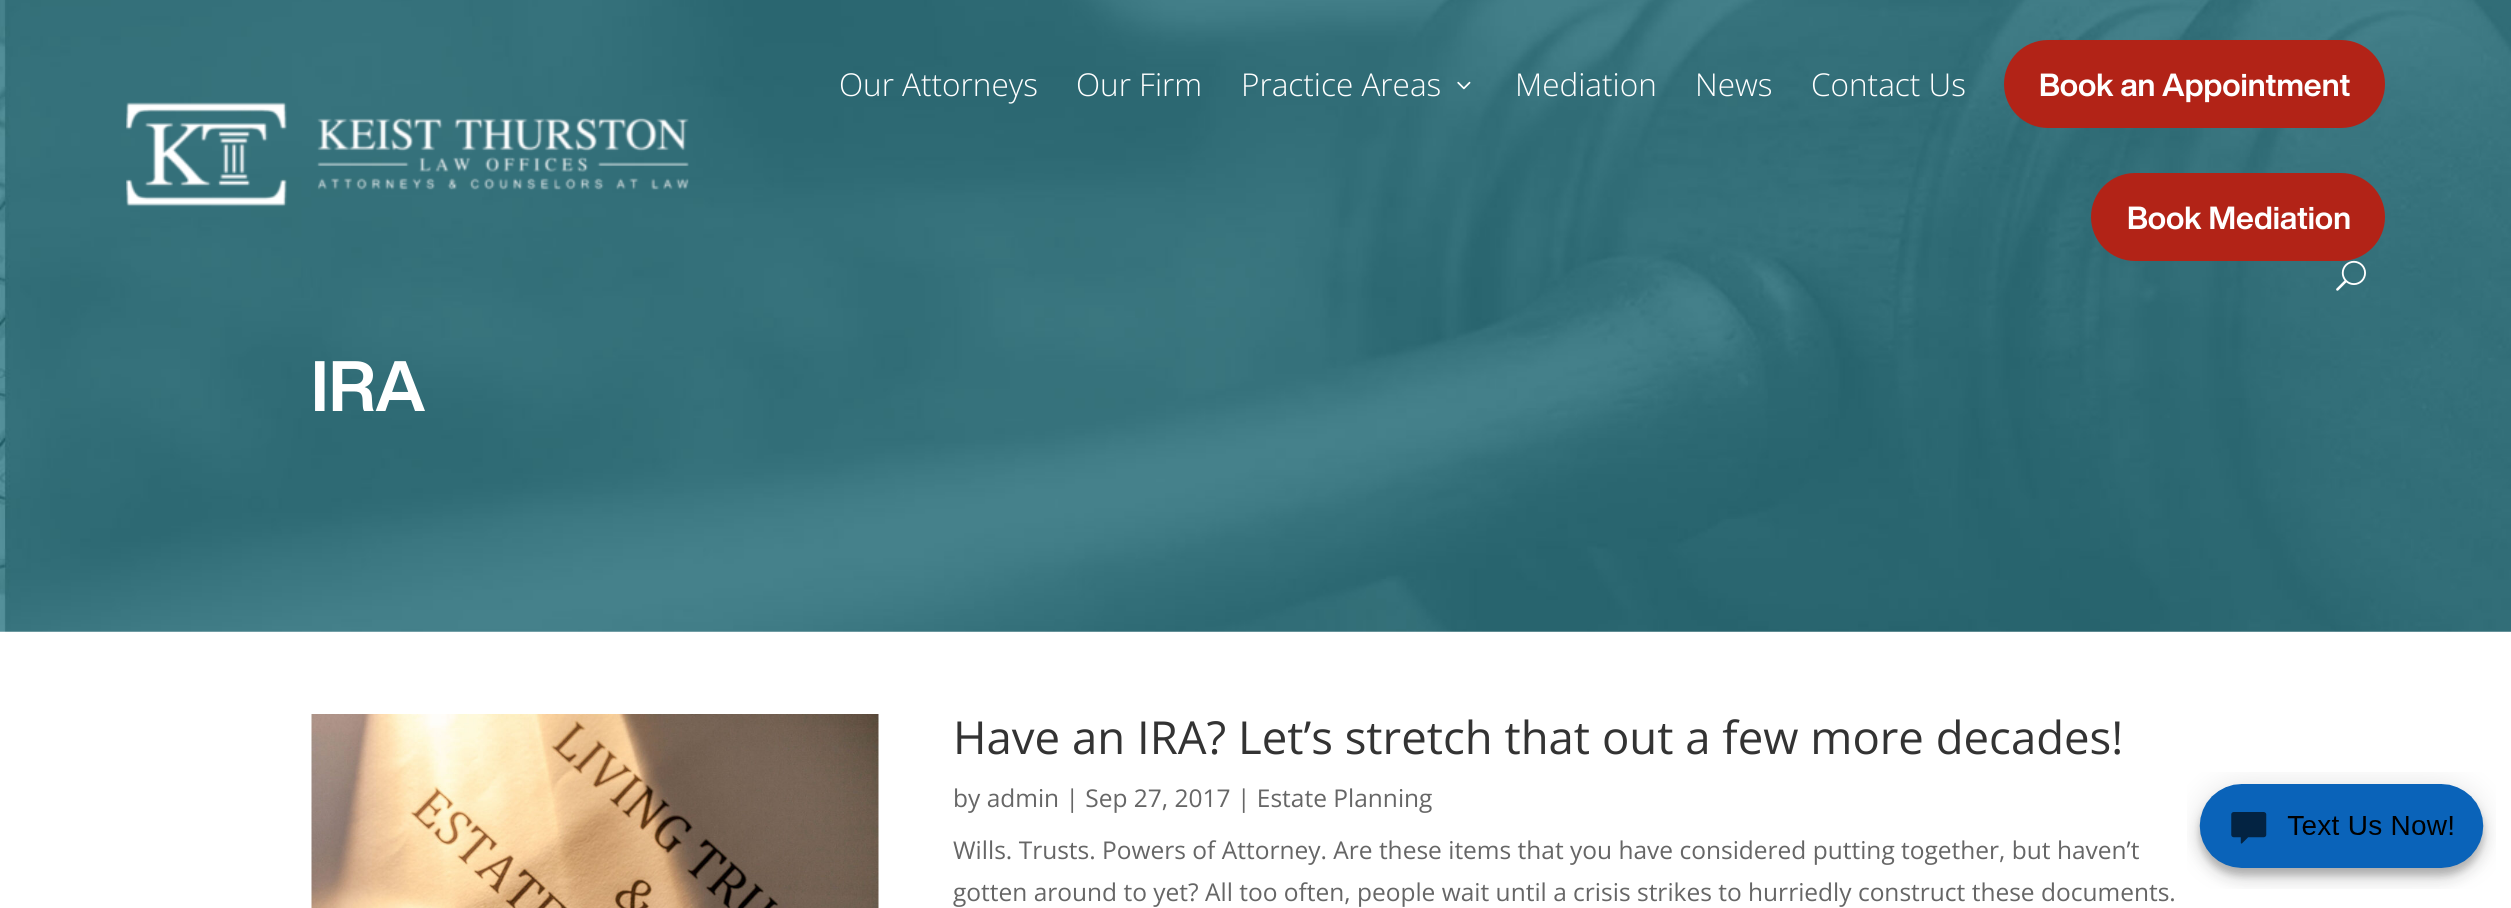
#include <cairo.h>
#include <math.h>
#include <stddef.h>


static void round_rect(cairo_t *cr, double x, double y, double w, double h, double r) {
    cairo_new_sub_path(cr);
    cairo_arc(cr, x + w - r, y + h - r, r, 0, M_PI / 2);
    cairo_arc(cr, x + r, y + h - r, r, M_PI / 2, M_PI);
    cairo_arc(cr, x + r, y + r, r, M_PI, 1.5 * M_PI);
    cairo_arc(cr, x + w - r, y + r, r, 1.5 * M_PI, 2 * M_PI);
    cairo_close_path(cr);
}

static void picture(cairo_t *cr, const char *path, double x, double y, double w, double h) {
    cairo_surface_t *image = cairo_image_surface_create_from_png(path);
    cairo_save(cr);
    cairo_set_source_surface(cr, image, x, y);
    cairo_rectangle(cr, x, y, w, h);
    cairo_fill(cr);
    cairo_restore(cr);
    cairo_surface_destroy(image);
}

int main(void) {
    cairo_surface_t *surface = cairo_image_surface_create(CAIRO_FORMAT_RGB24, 2511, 908);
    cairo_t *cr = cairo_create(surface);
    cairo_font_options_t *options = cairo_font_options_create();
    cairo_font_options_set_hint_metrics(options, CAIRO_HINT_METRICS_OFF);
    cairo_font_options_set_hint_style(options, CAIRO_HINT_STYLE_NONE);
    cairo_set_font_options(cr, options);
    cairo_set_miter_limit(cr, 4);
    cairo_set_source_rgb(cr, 1, 1, 1);
    cairo_paint(cr);
    picture(cr, "img4.png", 0, 0, 2511, 632);
    picture(cr, "img1.png", 126, 102, 563, 105);
    cairo_select_font_face(cr, "Open Sans Light", CAIRO_FONT_SLANT_NORMAL, CAIRO_FONT_WEIGHT_NORMAL);
    cairo_set_font_size(cr, 31.5);
    cairo_set_source_rgb(cr, 1, 1, 1);
    cairo_move_to(cr, 839, 96);
    cairo_show_text(cr, "Our Attorneys");
    cairo_move_to(cr, 1076, 96);
    cairo_show_text(cr, "Our Firm");
    cairo_move_to(cr, 1241, 96);
    cairo_show_text(cr, "Practice Areas");
    picture(cr, "img2.png", 1457, 81, 14, 9);
    cairo_move_to(cr, 1515, 96);
    cairo_show_text(cr, "Mediation");
    cairo_move_to(cr, 1695, 96);
    cairo_show_text(cr, "News");
    cairo_move_to(cr, 1811, 96);
    cairo_show_text(cr, "Contact Us");
    cairo_set_source_rgb(cr, 0.698, 0.137, 0.09);
    round_rect(cr, 2004, 40, 381, 88, 44);
    cairo_fill(cr);
    cairo_select_font_face(cr, "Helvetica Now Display", CAIRO_FONT_SLANT_NORMAL, CAIRO_FONT_WEIGHT_BOLD);
    cairo_set_source_rgb(cr, 1, 1, 1);
    cairo_move_to(cr, 2039, 96);
    cairo_show_text(cr, "Book an Appointment");
    picture(cr, "img3.png", 2336, 260, 30, 31);
    cairo_set_source_rgb(cr, 0.698, 0.137, 0.09);
    round_rect(cr, 2091, 173, 294, 88, 44);
    cairo_fill(cr);
    cairo_set_source_rgb(cr, 1, 1, 1);
    cairo_move_to(cr, 2127, 229);
    cairo_show_text(cr, "Book Mediation");
    cairo_set_font_size(cr, 70);
    cairo_move_to(cr, 311, 411);
    cairo_show_text(cr, "IRA");
    picture(cr, "img5.png", 311, 714, 568, 194);
    cairo_select_font_face(cr, "Open Sans", CAIRO_FONT_SLANT_NORMAL, CAIRO_FONT_WEIGHT_NORMAL);
    cairo_set_font_size(cr, 45.5);
    cairo_set_source_rgb(cr, 0.2, 0.2, 0.2);
    cairo_move_to(cr, 953, 754);
    cairo_show_text(cr, "Have an IRA? Let’s stretch that out a few more decades!");
    cairo_set_font_size(cr, 24.5);
    cairo_set_source_rgb(cr, 0.4, 0.4, 0.4);
    cairo_move_to(cr, 953, 807);
    cairo_show_text(cr, "by admin | Sep 27, 2017 | Estate Planning");
    cairo_move_to(cr, 953, 859);
    cairo_show_text(cr, "Wills. Trusts. Powers of Attorney. Are these items that you have considered putting together, but haven’t");
    cairo_move_to(cr, 953, 901);
    cairo_show_text(cr, "gotten around to yet? All too often, people wait until a crisis strikes to hurriedly construct these documents.");
    picture(cr, "img6.png", 2187, 772, 309, 117);
    cairo_surface_write_to_png(surface, "page.png");
    cairo_font_options_destroy(options);
    cairo_destroy(cr);
    cairo_surface_destroy(surface);
    return 0;
}
